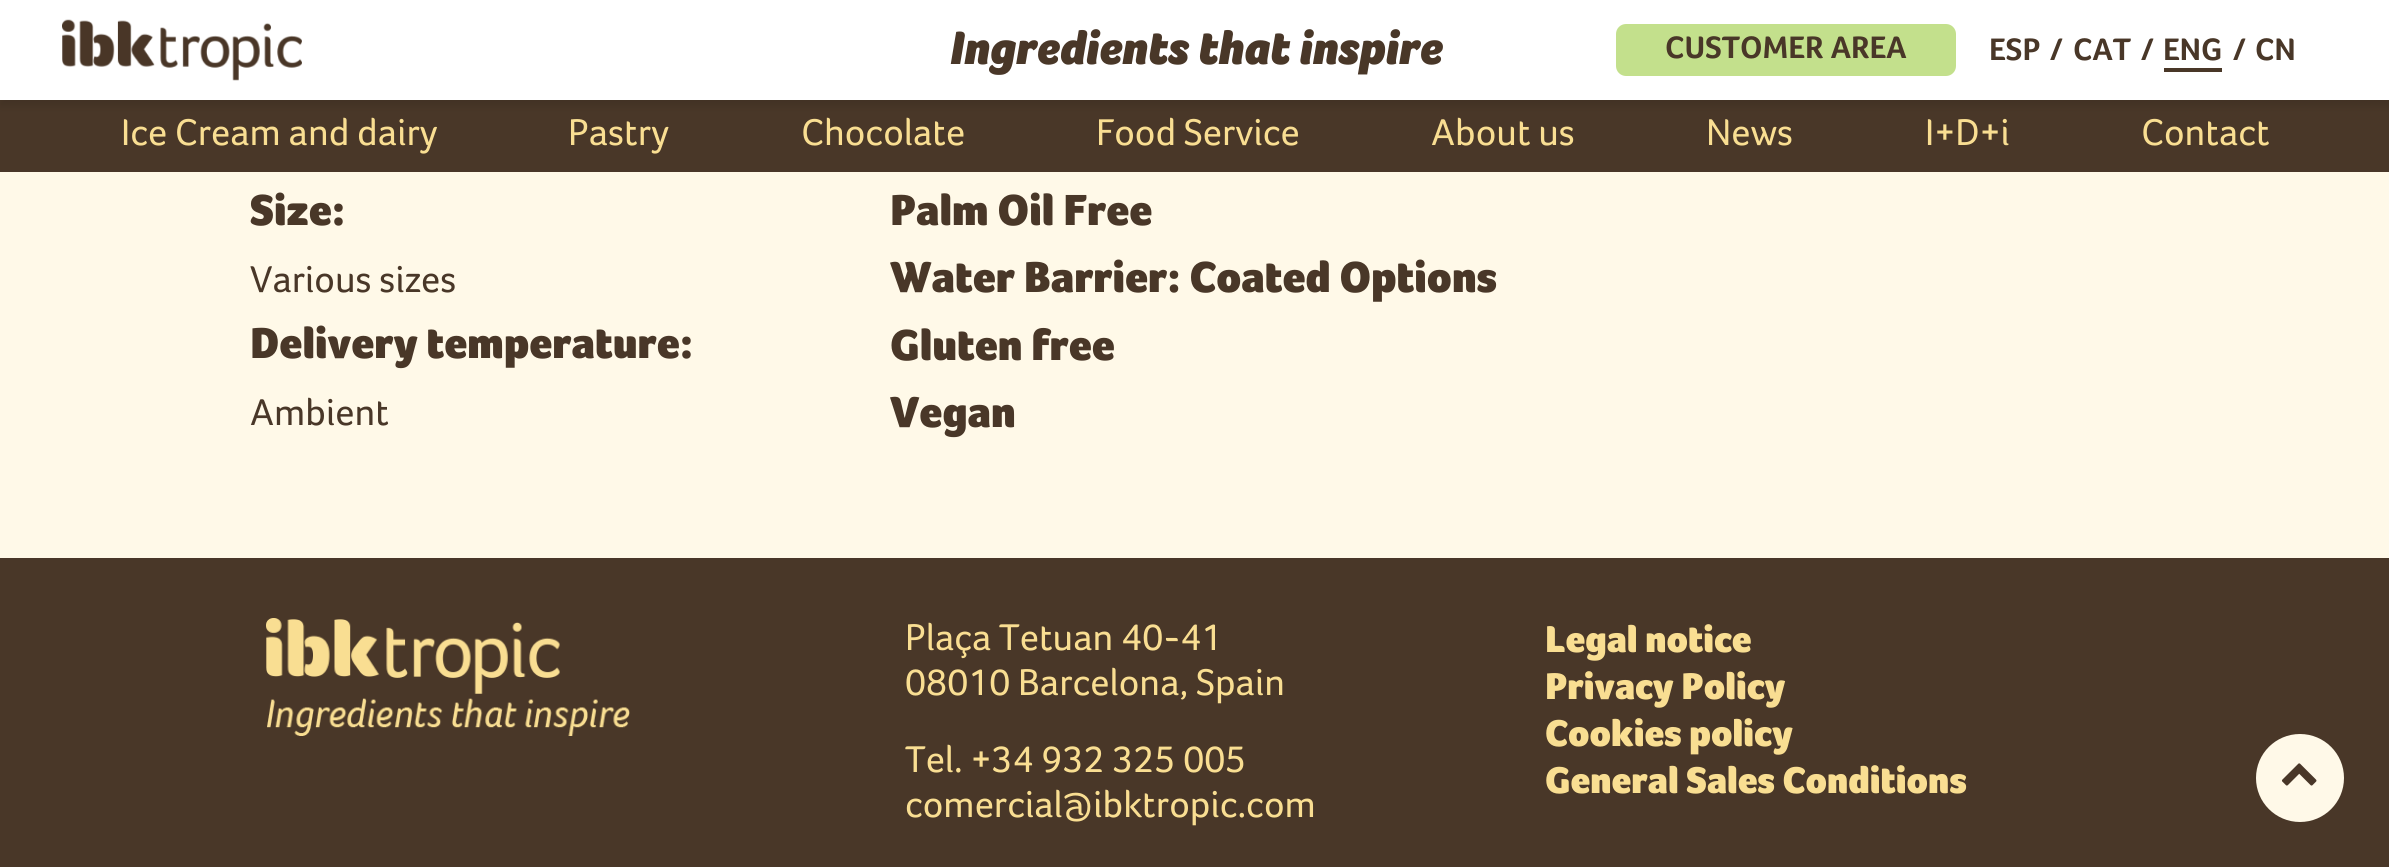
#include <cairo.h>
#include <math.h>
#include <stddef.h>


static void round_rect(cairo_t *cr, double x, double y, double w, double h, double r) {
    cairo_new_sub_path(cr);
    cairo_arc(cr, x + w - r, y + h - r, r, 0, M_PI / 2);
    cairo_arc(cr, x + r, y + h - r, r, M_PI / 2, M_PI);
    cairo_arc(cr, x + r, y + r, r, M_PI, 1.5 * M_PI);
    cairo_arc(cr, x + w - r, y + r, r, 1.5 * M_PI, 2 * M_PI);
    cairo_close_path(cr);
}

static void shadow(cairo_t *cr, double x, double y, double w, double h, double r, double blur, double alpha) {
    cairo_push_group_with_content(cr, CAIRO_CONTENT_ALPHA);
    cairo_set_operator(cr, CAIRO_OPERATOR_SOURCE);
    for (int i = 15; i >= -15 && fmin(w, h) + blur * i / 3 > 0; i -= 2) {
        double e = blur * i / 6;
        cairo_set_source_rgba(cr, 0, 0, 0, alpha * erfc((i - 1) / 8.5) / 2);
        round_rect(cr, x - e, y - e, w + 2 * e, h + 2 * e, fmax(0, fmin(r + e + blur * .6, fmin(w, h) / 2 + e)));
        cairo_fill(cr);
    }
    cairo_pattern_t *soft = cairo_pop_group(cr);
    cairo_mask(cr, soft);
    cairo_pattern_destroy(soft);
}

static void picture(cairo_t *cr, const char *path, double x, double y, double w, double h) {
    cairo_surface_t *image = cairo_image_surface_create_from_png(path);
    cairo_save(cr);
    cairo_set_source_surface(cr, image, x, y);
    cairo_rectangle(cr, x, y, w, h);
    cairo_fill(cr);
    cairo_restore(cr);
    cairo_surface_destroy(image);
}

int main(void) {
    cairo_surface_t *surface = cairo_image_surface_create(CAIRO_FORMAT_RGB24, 2389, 867);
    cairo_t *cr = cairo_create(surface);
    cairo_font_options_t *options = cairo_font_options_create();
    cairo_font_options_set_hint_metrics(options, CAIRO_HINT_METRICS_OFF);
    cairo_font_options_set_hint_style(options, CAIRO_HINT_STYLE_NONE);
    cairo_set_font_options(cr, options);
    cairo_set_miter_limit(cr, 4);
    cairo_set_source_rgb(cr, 1, 0.973, 0.91);
    cairo_paint(cr);
    cairo_set_source_rgb(cr, 0.286, 0.216, 0.157);
    cairo_rectangle(cr, 0, 100, 2389, 72);
    cairo_fill(cr);
    cairo_set_source_rgb(cr, 0, 0, 0);
    shadow(cr, 0, 6, 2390, 100, 0, 4, 0.1);
    cairo_set_source_rgb(cr, 1, 1, 1);
    cairo_rectangle(cr, 0, 0, 2389, 100);
    cairo_fill(cr);
    picture(cr, "img1.png", 62, 19, 240, 62);
    cairo_select_font_face(cr, "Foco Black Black", CAIRO_FONT_SLANT_ITALIC, CAIRO_FONT_WEIGHT_NORMAL);
    cairo_set_font_size(cr, 48);
    cairo_set_source_rgb(cr, 0.286, 0.216, 0.157);
    cairo_move_to(cr, 949, 64);
    cairo_show_text(cr, "Ingredients that inspire");
    cairo_set_source_rgb(cr, 0.765, 0.878, 0.549);
    round_rect(cr, 1616, 24, 340, 52, 10);
    cairo_fill(cr);
    cairo_select_font_face(cr, "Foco", CAIRO_FONT_SLANT_NORMAL, CAIRO_FONT_WEIGHT_BOLD);
    cairo_set_font_size(cr, 32);
    cairo_set_source_rgb(cr, 0.286, 0.216, 0.157);
    cairo_move_to(cr, 1665, 58);
    cairo_show_text(cr, "CUSTOMER AREA");
    cairo_move_to(cr, 1989, 60);
    cairo_show_text(cr, "ESP");
    cairo_move_to(cr, 2050, 60);
    cairo_show_text(cr, "/");
    cairo_move_to(cr, 2073, 60);
    cairo_show_text(cr, "CAT");
    cairo_move_to(cr, 2141, 60);
    cairo_show_text(cr, "/");
    cairo_move_to(cr, 2163, 60);
    cairo_show_text(cr, "ENG");
    cairo_rectangle(cr, 2164, 68, 58, 4);
    cairo_fill(cr);
    cairo_move_to(cr, 2233, 60);
    cairo_show_text(cr, "/");
    cairo_move_to(cr, 2255, 60);
    cairo_show_text(cr, "CN");
    cairo_select_font_face(cr, "Foco", CAIRO_FONT_SLANT_NORMAL, CAIRO_FONT_WEIGHT_NORMAL);
    cairo_set_font_size(cr, 38.4);
    cairo_set_source_rgb(cr, 0.976, 0.871, 0.573);
    cairo_move_to(cr, 121, 145);
    cairo_show_text(cr, "Ice Cream and dairy");
    cairo_move_to(cr, 568, 145);
    cairo_show_text(cr, "Pastry");
    cairo_move_to(cr, 801, 145);
    cairo_show_text(cr, "Chocolate");
    cairo_move_to(cr, 1096, 145);
    cairo_show_text(cr, "Food Service");
    cairo_move_to(cr, 1431, 145);
    cairo_show_text(cr, "About us");
    cairo_move_to(cr, 1706, 145);
    cairo_show_text(cr, "News");
    cairo_move_to(cr, 1925, 145);
    cairo_show_text(cr, "I+D+i");
    cairo_move_to(cr, 2141, 145);
    cairo_show_text(cr, "Contact");
    cairo_select_font_face(cr, "Foco Black Black", CAIRO_FONT_SLANT_NORMAL, CAIRO_FONT_WEIGHT_NORMAL);
    cairo_set_font_size(cr, 44.75);
    cairo_set_source_rgb(cr, 0.286, 0.216, 0.157);
    cairo_move_to(cr, 250, 225);
    cairo_show_text(cr, "Size:");
    cairo_select_font_face(cr, "Foco", CAIRO_FONT_SLANT_NORMAL, CAIRO_FONT_WEIGHT_NORMAL);
    cairo_set_font_size(cr, 38.4);
    cairo_move_to(cr, 250, 292);
    cairo_show_text(cr, "Various sizes");
    cairo_select_font_face(cr, "Foco Black Black", CAIRO_FONT_SLANT_NORMAL, CAIRO_FONT_WEIGHT_NORMAL);
    cairo_set_font_size(cr, 44.75);
    cairo_move_to(cr, 250, 358);
    cairo_show_text(cr, "Delivery temperature:");
    cairo_select_font_face(cr, "Foco", CAIRO_FONT_SLANT_NORMAL, CAIRO_FONT_WEIGHT_NORMAL);
    cairo_set_font_size(cr, 38.4);
    cairo_move_to(cr, 250, 425);
    cairo_show_text(cr, "Ambient");
    cairo_select_font_face(cr, "Foco Black Black", CAIRO_FONT_SLANT_NORMAL, CAIRO_FONT_WEIGHT_NORMAL);
    cairo_set_font_size(cr, 44.75);
    cairo_move_to(cr, 890, 225);
    cairo_show_text(cr, "Palm Oil Free");
    cairo_move_to(cr, 890, 292);
    cairo_show_text(cr, "Water Barrier: Coated Options");
    cairo_move_to(cr, 890, 360);
    cairo_show_text(cr, "Gluten free");
    cairo_move_to(cr, 890, 427);
    cairo_show_text(cr, "Vegan");
    cairo_rectangle(cr, 0, 558, 2389, 309);
    cairo_fill(cr);
    picture(cr, "img2.png", 266, 618, 364, 118);
    cairo_select_font_face(cr, "Foco", CAIRO_FONT_SLANT_NORMAL, CAIRO_FONT_WEIGHT_NORMAL);
    cairo_set_font_size(cr, 38.4);
    cairo_set_source_rgb(cr, 0.976, 0.871, 0.573);
    cairo_move_to(cr, 905, 650);
    cairo_show_text(cr, "Plaça Tetuan 40-41");
    cairo_move_to(cr, 905, 695);
    cairo_show_text(cr, "08010 Barcelona, Spain");
    cairo_move_to(cr, 905, 772);
    cairo_show_text(cr, "Tel. +34 932 325 005");
    cairo_move_to(cr, 905, 817);
    cairo_show_text(cr, "comercial@ibktropic.com");
    cairo_select_font_face(cr, "Foco Black Black", CAIRO_FONT_SLANT_NORMAL, CAIRO_FONT_WEIGHT_NORMAL);
    cairo_move_to(cr, 1545, 652);
    cairo_show_text(cr, "Legal notice");
    cairo_move_to(cr, 1545, 699);
    cairo_show_text(cr, "Privacy Policy");
    cairo_move_to(cr, 1545, 746);
    cairo_show_text(cr, "Cookies policy");
    cairo_move_to(cr, 1545, 793);
    cairo_show_text(cr, "General Sales Conditions");
    cairo_set_source_rgb(cr, 1, 0.973, 0.91);
    cairo_new_path(cr);
    cairo_arc(cr, 2300, 778, 47, 0, 2 * M_PI);
    cairo_fill_preserve(cr);
    cairo_set_source_rgb(cr, 0.286, 0.216, 0.157);
    cairo_set_line_width(cr, 6);
    cairo_stroke(cr);
    picture(cr, "img3.png", 2281, 763, 36, 23);
    cairo_surface_write_to_png(surface, "page.png");
    cairo_font_options_destroy(options);
    cairo_destroy(cr);
    cairo_surface_destroy(surface);
    return 0;
}
